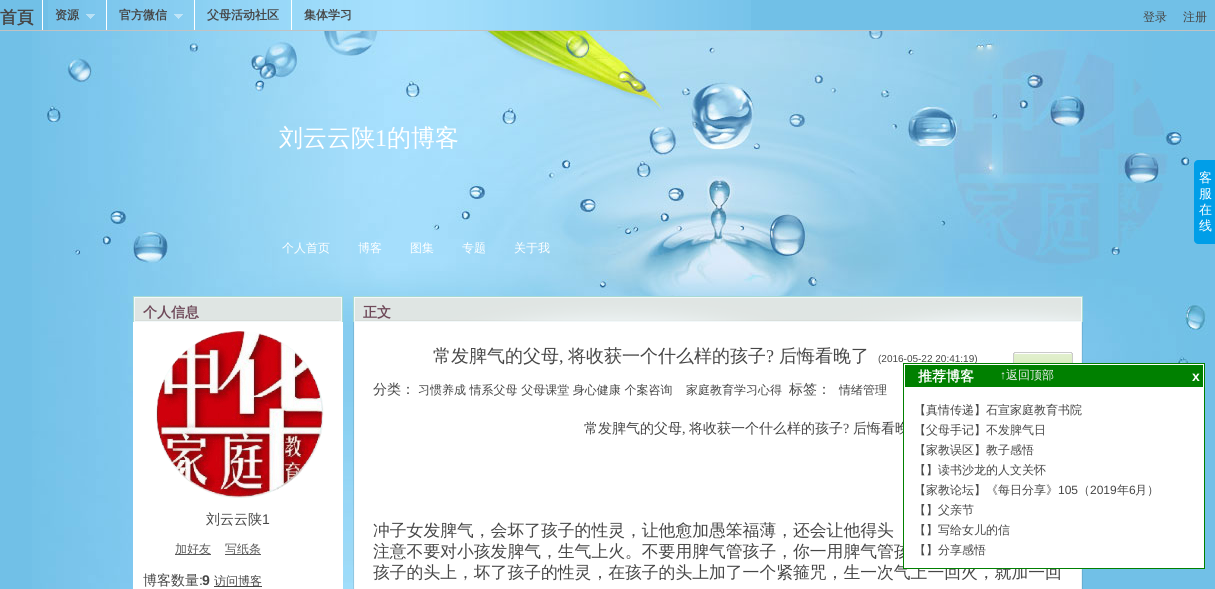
#include <cairo.h>
#include <math.h>
#include <stddef.h>


static void picture(cairo_t *cr, const char *path, double x, double y, double w, double h) {
    cairo_surface_t *image = cairo_image_surface_create_from_png(path);
    cairo_save(cr);
    cairo_set_source_surface(cr, image, x, y);
    cairo_rectangle(cr, x, y, w, h);
    cairo_fill(cr);
    cairo_restore(cr);
    cairo_surface_destroy(image);
}

int main(void) {
    cairo_surface_t *surface = cairo_image_surface_create(CAIRO_FORMAT_RGB24, 1215, 589);
    cairo_t *cr = cairo_create(surface);
    cairo_font_options_t *options = cairo_font_options_create();
    cairo_font_options_set_hint_metrics(options, CAIRO_HINT_METRICS_OFF);
    cairo_font_options_set_hint_style(options, CAIRO_HINT_STYLE_NONE);
    cairo_set_font_options(cr, options);
    cairo_set_miter_limit(cr, 4);
    cairo_set_source_rgb(cr, 0.443, 0.753, 0.906);
    cairo_paint(cr);
    picture(cr, "img1.png", 48, 0, 703, 30);
    cairo_select_font_face(cr, "WenQuanYi Zen Hei", CAIRO_FONT_SLANT_NORMAL, CAIRO_FONT_WEIGHT_BOLD);
    cairo_set_font_size(cr, 16.8);
    cairo_set_source_rgb(cr, 0.275, 0.275, 0.275);
    cairo_move_to(cr, 0, 23);
    cairo_show_text(cr, "首頁");
    cairo_set_source_rgb(cr, 1, 1, 1);
    cairo_rectangle(cr, 42, 0, 1, 30);
    cairo_fill(cr);
    cairo_set_font_size(cr, 12);
    cairo_set_source_rgb(cr, 0.275, 0.275, 0.275);
    cairo_move_to(cr, 55, 19);
    cairo_show_text(cr, "资源");
    picture(cr, "img2.png", 86, 14, 9, 5);
    cairo_set_source_rgb(cr, 1, 1, 1);
    cairo_rectangle(cr, 106, 0, 1, 30);
    cairo_fill(cr);
    cairo_set_source_rgb(cr, 0.275, 0.275, 0.275);
    cairo_move_to(cr, 119, 19);
    cairo_show_text(cr, "官方微信");
    picture(cr, "img3.png", 174, 14, 9, 5);
    cairo_set_source_rgb(cr, 1, 1, 1);
    cairo_rectangle(cr, 194, 0, 1, 30);
    cairo_fill(cr);
    cairo_set_source_rgb(cr, 0.275, 0.275, 0.275);
    cairo_move_to(cr, 207, 19);
    cairo_show_text(cr, "父母活动社区");
    cairo_set_source_rgb(cr, 1, 1, 1);
    cairo_rectangle(cr, 291, 0, 1, 30);
    cairo_fill(cr);
    cairo_set_source_rgb(cr, 0.275, 0.275, 0.275);
    cairo_move_to(cr, 304, 19);
    cairo_show_text(cr, "集体学习");
    cairo_select_font_face(cr, "WenQuanYi Zen Hei Medium", CAIRO_FONT_SLANT_NORMAL, CAIRO_FONT_WEIGHT_NORMAL);
    cairo_move_to(cr, 1143, 21);
    cairo_show_text(cr, "登录");
    cairo_move_to(cr, 1183, 21);
    cairo_show_text(cr, "注册");
    cairo_set_source_rgb(cr, 0.761, 0.761, 0.761);
    cairo_rectangle(cr, 0, 30, 1215, 1);
    cairo_fill(cr);
    picture(cr, "img4.png", 32, 31, 1183, 558);
    cairo_set_font_size(cr, 24);
    cairo_set_source_rgb(cr, 1, 1, 1);
    cairo_move_to(cr, 279, 146);
    cairo_show_text(cr, "刘云云陕");
    cairo_select_font_face(cr, "Liberation Serif", CAIRO_FONT_SLANT_NORMAL, CAIRO_FONT_WEIGHT_NORMAL);
    cairo_move_to(cr, 375, 146);
    cairo_show_text(cr, "1");
    cairo_select_font_face(cr, "WenQuanYi Zen Hei Medium", CAIRO_FONT_SLANT_NORMAL, CAIRO_FONT_WEIGHT_NORMAL);
    cairo_move_to(cr, 387, 146);
    cairo_show_text(cr, "的博客");
    cairo_set_font_size(cr, 12);
    cairo_move_to(cr, 282, 252);
    cairo_show_text(cr, "个人首页");
    cairo_move_to(cr, 358, 252);
    cairo_show_text(cr, "博客");
    cairo_move_to(cr, 410, 252);
    cairo_show_text(cr, "图集");
    cairo_move_to(cr, 462, 252);
    cairo_show_text(cr, "专题");
    cairo_move_to(cr, 514, 252);
    cairo_show_text(cr, "关于我");
    picture(cr, "img5.png", 133, 296, 210, 26);
    cairo_select_font_face(cr, "WenQuanYi Zen Hei", CAIRO_FONT_SLANT_NORMAL, CAIRO_FONT_WEIGHT_BOLD);
    cairo_set_font_size(cr, 14);
    cairo_set_source_rgb(cr, 0.435, 0.29, 0.353);
    cairo_move_to(cr, 143, 317);
    cairo_show_text(cr, "个人信息");
    cairo_set_source_rgb(cr, 1, 1, 1);
    cairo_rectangle(cr, 133, 322, 210, 267);
    cairo_fill(cr);
    picture(cr, "img6.png", 156, 331, 168, 167);
    cairo_select_font_face(cr, "WenQuanYi Zen Hei Medium", CAIRO_FONT_SLANT_NORMAL, CAIRO_FONT_WEIGHT_NORMAL);
    cairo_set_source_rgb(cr, 0.275, 0.275, 0.275);
    cairo_move_to(cr, 206, 524);
    cairo_show_text(cr, "刘云云陕");
    cairo_select_font_face(cr, "Liberation Sans", CAIRO_FONT_SLANT_NORMAL, CAIRO_FONT_WEIGHT_NORMAL);
    cairo_move_to(cr, 262, 524);
    cairo_show_text(cr, "1");
    cairo_set_source_rgb(cr, 0.349, 0.349, 0.349);
    cairo_rectangle(cr, 175, 554, 36, 1);
    cairo_fill(cr);
    cairo_select_font_face(cr, "WenQuanYi Zen Hei Medium", CAIRO_FONT_SLANT_NORMAL, CAIRO_FONT_WEIGHT_NORMAL);
    cairo_set_font_size(cr, 12);
    cairo_move_to(cr, 175, 553);
    cairo_show_text(cr, "加好友");
    cairo_rectangle(cr, 225, 554, 36, 1);
    cairo_fill(cr);
    cairo_move_to(cr, 225, 553);
    cairo_show_text(cr, "写纸条");
    cairo_set_font_size(cr, 14);
    cairo_set_source_rgb(cr, 0.275, 0.275, 0.275);
    cairo_move_to(cr, 143, 585);
    cairo_show_text(cr, "博客数量");
    cairo_select_font_face(cr, "Liberation Sans", CAIRO_FONT_SLANT_NORMAL, CAIRO_FONT_WEIGHT_NORMAL);
    cairo_move_to(cr, 199, 585);
    cairo_show_text(cr, ":");
    cairo_select_font_face(cr, "Liberation Sans", CAIRO_FONT_SLANT_NORMAL, CAIRO_FONT_WEIGHT_BOLD);
    cairo_move_to(cr, 202, 585);
    cairo_show_text(cr, "9");
    cairo_rectangle(cr, 214, 586, 48, 1);
    cairo_fill(cr);
    cairo_select_font_face(cr, "WenQuanYi Zen Hei Medium", CAIRO_FONT_SLANT_NORMAL, CAIRO_FONT_WEIGHT_NORMAL);
    cairo_set_font_size(cr, 12);
    cairo_move_to(cr, 214, 585);
    cairo_show_text(cr, "访问博客");
    picture(cr, "img7.png", 353, 296, 730, 26);
    cairo_select_font_face(cr, "WenQuanYi Zen Hei", CAIRO_FONT_SLANT_NORMAL, CAIRO_FONT_WEIGHT_BOLD);
    cairo_set_font_size(cr, 14);
    cairo_set_source_rgb(cr, 0.435, 0.29, 0.353);
    cairo_move_to(cr, 363, 317);
    cairo_show_text(cr, "正文");
    picture(cr, "img8.png", 353, 322, 730, 267);
    cairo_select_font_face(cr, "WenQuanYi Zen Hei Medium", CAIRO_FONT_SLANT_NORMAL, CAIRO_FONT_WEIGHT_NORMAL);
    cairo_set_font_size(cr, 18);
    cairo_set_source_rgb(cr, 0.275, 0.275, 0.275);
    cairo_move_to(cr, 433, 362);
    cairo_show_text(cr, "常发脾气的父母");
    cairo_select_font_face(cr, "Liberation Serif", CAIRO_FONT_SLANT_NORMAL, CAIRO_FONT_WEIGHT_NORMAL);
    cairo_move_to(cr, 559, 362);
    cairo_show_text(cr, ",");
    cairo_select_font_face(cr, "WenQuanYi Zen Hei Medium", CAIRO_FONT_SLANT_NORMAL, CAIRO_FONT_WEIGHT_NORMAL);
    cairo_move_to(cr, 568, 362);
    cairo_show_text(cr, "将收获一个什么样的孩子");
    cairo_select_font_face(cr, "Liberation Serif", CAIRO_FONT_SLANT_NORMAL, CAIRO_FONT_WEIGHT_NORMAL);
    cairo_move_to(cr, 766, 362);
    cairo_show_text(cr, "?");
    cairo_select_font_face(cr, "WenQuanYi Zen Hei Medium", CAIRO_FONT_SLANT_NORMAL, CAIRO_FONT_WEIGHT_NORMAL);
    cairo_move_to(cr, 779, 362);
    cairo_show_text(cr, "后悔看晚了");
    cairo_select_font_face(cr, "Liberation Sans", CAIRO_FONT_SLANT_NORMAL, CAIRO_FONT_WEIGHT_NORMAL);
    cairo_set_font_size(cr, 10);
    cairo_move_to(cr, 878, 362);
    cairo_show_text(cr, "(2016-05-22 20:41:19)");
    picture(cr, "img9.png", 1013, 352, 60, 11);
    cairo_select_font_face(cr, "WenQuanYi Zen Hei Medium", CAIRO_FONT_SLANT_NORMAL, CAIRO_FONT_WEIGHT_NORMAL);
    cairo_set_font_size(cr, 14);
    cairo_move_to(cr, 373, 394);
    cairo_show_text(cr, "分类：");
    cairo_set_font_size(cr, 12);
    cairo_move_to(cr, 418, 394);
    cairo_show_text(cr, "习惯养成 情系父母 父母课堂 身心健康 个案咨询");
    cairo_move_to(cr, 686, 394);
    cairo_show_text(cr, "家庭教育学习心得");
    cairo_set_font_size(cr, 14);
    cairo_move_to(cr, 789, 394);
    cairo_show_text(cr, "标签：");
    cairo_set_font_size(cr, 12);
    cairo_move_to(cr, 839, 394);
    cairo_show_text(cr, "情绪管理");
    cairo_set_font_size(cr, 14);
    cairo_move_to(cr, 584, 433);
    cairo_show_text(cr, "常发脾气的父母");
    cairo_select_font_face(cr, "Liberation Serif", CAIRO_FONT_SLANT_NORMAL, CAIRO_FONT_WEIGHT_NORMAL);
    cairo_move_to(cr, 682, 433);
    cairo_show_text(cr, ",");
    cairo_select_font_face(cr, "WenQuanYi Zen Hei Medium", CAIRO_FONT_SLANT_NORMAL, CAIRO_FONT_WEIGHT_NORMAL);
    cairo_move_to(cr, 689, 433);
    cairo_show_text(cr, "将收获一个什么样的孩子");
    cairo_select_font_face(cr, "Liberation Serif", CAIRO_FONT_SLANT_NORMAL, CAIRO_FONT_WEIGHT_NORMAL);
    cairo_move_to(cr, 843, 433);
    cairo_show_text(cr, "?");
    cairo_select_font_face(cr, "WenQuanYi Zen Hei Medium", CAIRO_FONT_SLANT_NORMAL, CAIRO_FONT_WEIGHT_NORMAL);
    cairo_move_to(cr, 853, 433);
    cairo_show_text(cr, "后悔看晚");
    cairo_set_font_size(cr, 16.8);
    cairo_move_to(cr, 373, 536);
    cairo_show_text(cr, "冲子女发脾气，会坏了孩子的性灵，让他愈加愚笨福薄，还会让他得头");
    cairo_move_to(cr, 373, 557);
    cairo_show_text(cr, "注意不要对小孩发脾气，生气上火。不要用脾气管孩子，你一用脾气管孩");
    cairo_move_to(cr, 373, 578);
    cairo_show_text(cr, "孩子的头上，坏了孩子的性灵，在孩子的头上加了一个紧箍咒，生一次气上一回火，就加一回");
    cairo_set_source_rgb(cr, 0, 0.62, 0.91);
    cairo_new_path(cr);
    cairo_move_to(cr, 1198, 160);
    cairo_line_to(cr, 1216, 160);
    cairo_line_to(cr, 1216, 244);
    cairo_line_to(cr, 1198, 244);
    cairo_curve_to(cr, 1196, 244, 1194, 242, 1194, 240);
    cairo_line_to(cr, 1194, 164);
    cairo_curve_to(cr, 1194, 162, 1196, 160, 1198, 160);
    cairo_close_path(cr);
    cairo_fill(cr);
    cairo_set_font_size(cr, 13);
    cairo_set_source_rgb(cr, 1, 1, 1);
    cairo_move_to(cr, 1199, 182);
    cairo_show_text(cr, "客");
    cairo_move_to(cr, 1199, 198);
    cairo_show_text(cr, "服");
    cairo_move_to(cr, 1199, 214);
    cairo_show_text(cr, "在");
    cairo_move_to(cr, 1199, 230);
    cairo_show_text(cr, "线");
    cairo_rectangle(cr, 904, 388, 300, 180);
    cairo_fill(cr);
    cairo_rectangle(cr, 903.5, 363.5, 301, 205);
    cairo_set_source_rgb(cr, 0, 0.502, 0);
    cairo_set_line_width(cr, 1);
    cairo_stroke(cr);
    cairo_rectangle(cr, 904.5, 364.5, 299, 23);
    cairo_fill_preserve(cr);
    cairo_set_source_rgb(cr, 1, 1, 1);
    cairo_stroke(cr);
    cairo_select_font_face(cr, "WenQuanYi Zen Hei", CAIRO_FONT_SLANT_NORMAL, CAIRO_FONT_WEIGHT_BOLD);
    cairo_set_font_size(cr, 14);
    cairo_move_to(cr, 918, 381);
    cairo_show_text(cr, "推荐博客");
    cairo_select_font_face(cr, "Liberation Sans", CAIRO_FONT_SLANT_NORMAL, CAIRO_FONT_WEIGHT_NORMAL);
    cairo_set_font_size(cr, 12);
    cairo_set_source_rgb(cr, 0.933, 0.933, 0.933);
    cairo_move_to(cr, 1000, 379);
    cairo_show_text(cr, "↑");
    cairo_select_font_face(cr, "WenQuanYi Zen Hei Medium", CAIRO_FONT_SLANT_NORMAL, CAIRO_FONT_WEIGHT_NORMAL);
    cairo_move_to(cr, 1006, 379);
    cairo_show_text(cr, "返回顶部");
    cairo_select_font_face(cr, "Liberation Sans", CAIRO_FONT_SLANT_NORMAL, CAIRO_FONT_WEIGHT_BOLD);
    cairo_set_font_size(cr, 14);
    cairo_set_source_rgb(cr, 1, 1, 1);
    cairo_move_to(cr, 1192, 381);
    cairo_show_text(cr, "x");
    cairo_select_font_face(cr, "WenQuanYi Zen Hei Medium", CAIRO_FONT_SLANT_NORMAL, CAIRO_FONT_WEIGHT_NORMAL);
    cairo_set_font_size(cr, 12);
    cairo_set_source_rgb(cr, 0.275, 0.275, 0.275);
    cairo_move_to(cr, 914, 414);
    cairo_show_text(cr, "【真情传递】石宣家庭教育书院");
    cairo_move_to(cr, 914, 434);
    cairo_show_text(cr, "【父母手记】不发脾气日");
    cairo_move_to(cr, 914, 454);
    cairo_show_text(cr, "【家教误区】教子感悟");
    cairo_move_to(cr, 914, 474);
    cairo_show_text(cr, "【】读书沙龙的人文关怀");
    cairo_move_to(cr, 914, 494);
    cairo_show_text(cr, "【家教论坛】《每日分享》");
    cairo_select_font_face(cr, "Liberation Sans", CAIRO_FONT_SLANT_NORMAL, CAIRO_FONT_WEIGHT_NORMAL);
    cairo_move_to(cr, 1058, 494);
    cairo_show_text(cr, "105");
    cairo_select_font_face(cr, "WenQuanYi Zen Hei Medium", CAIRO_FONT_SLANT_NORMAL, CAIRO_FONT_WEIGHT_NORMAL);
    cairo_move_to(cr, 1078, 494);
    cairo_show_text(cr, "（");
    cairo_select_font_face(cr, "Liberation Sans", CAIRO_FONT_SLANT_NORMAL, CAIRO_FONT_WEIGHT_NORMAL);
    cairo_move_to(cr, 1090, 494);
    cairo_show_text(cr, "2019");
    cairo_select_font_face(cr, "WenQuanYi Zen Hei Medium", CAIRO_FONT_SLANT_NORMAL, CAIRO_FONT_WEIGHT_NORMAL);
    cairo_move_to(cr, 1117, 494);
    cairo_show_text(cr, "年");
    cairo_select_font_face(cr, "Liberation Sans", CAIRO_FONT_SLANT_NORMAL, CAIRO_FONT_WEIGHT_NORMAL);
    cairo_move_to(cr, 1129, 494);
    cairo_show_text(cr, "6");
    cairo_select_font_face(cr, "WenQuanYi Zen Hei Medium", CAIRO_FONT_SLANT_NORMAL, CAIRO_FONT_WEIGHT_NORMAL);
    cairo_move_to(cr, 1135, 494);
    cairo_show_text(cr, "月）");
    cairo_move_to(cr, 914, 514);
    cairo_show_text(cr, "【】父亲节");
    cairo_move_to(cr, 914, 534);
    cairo_show_text(cr, "【】写给女儿的信");
    cairo_move_to(cr, 914, 554);
    cairo_show_text(cr, "【】分享感悟");
    cairo_surface_write_to_png(surface, "page.png");
    cairo_font_options_destroy(options);
    cairo_destroy(cr);
    cairo_surface_destroy(surface);
    return 0;
}
